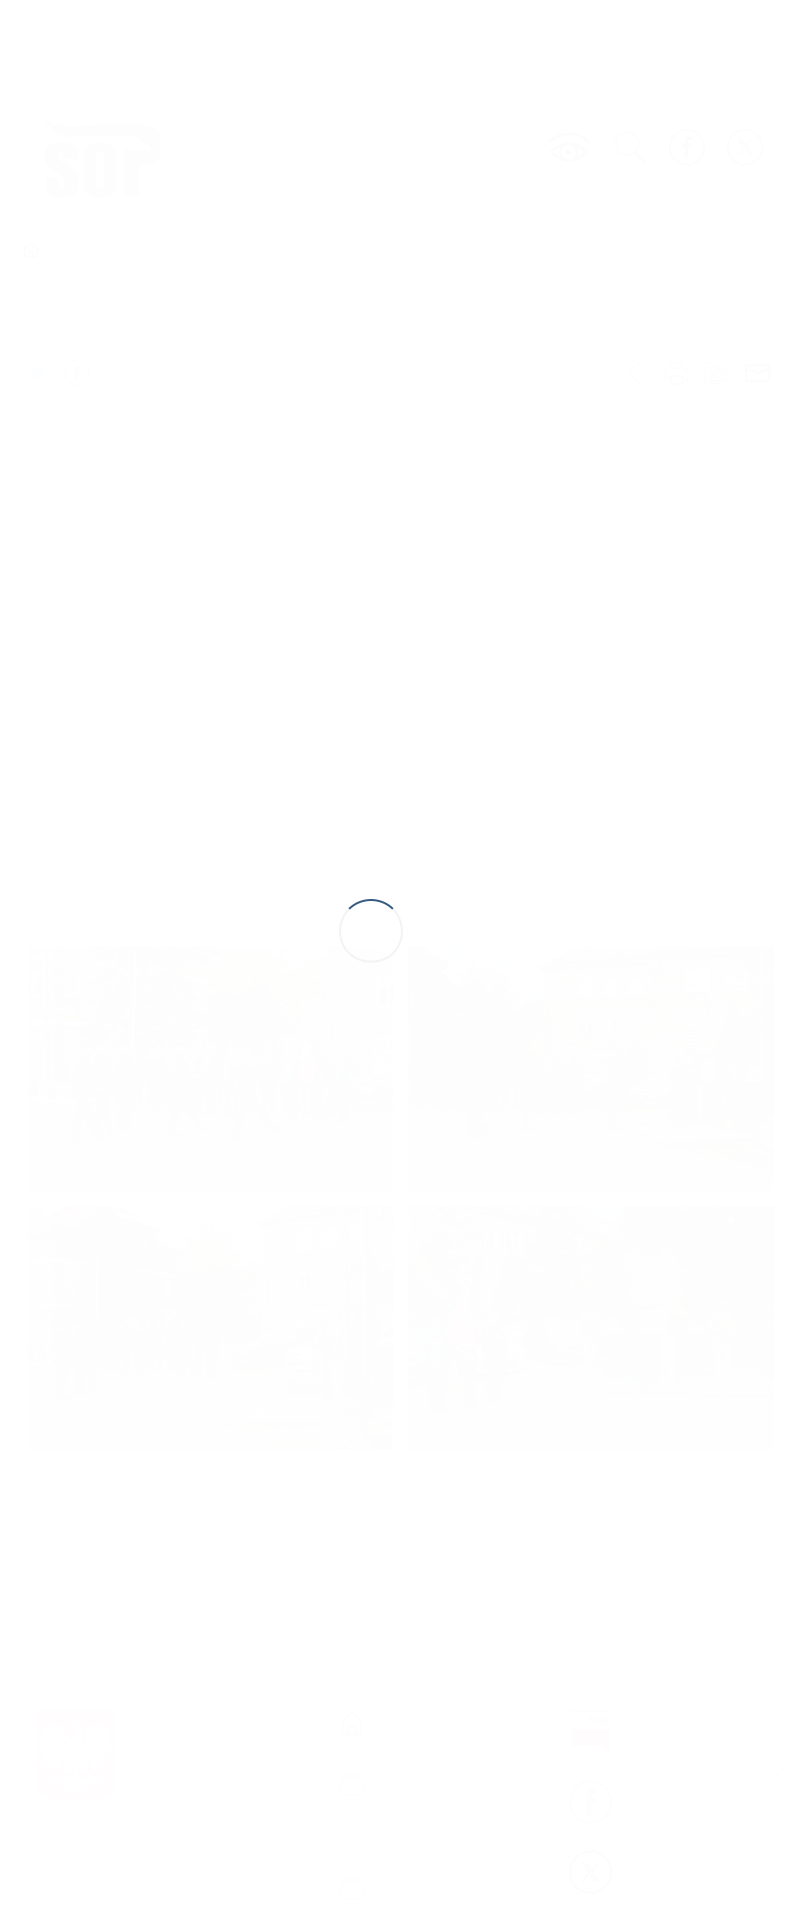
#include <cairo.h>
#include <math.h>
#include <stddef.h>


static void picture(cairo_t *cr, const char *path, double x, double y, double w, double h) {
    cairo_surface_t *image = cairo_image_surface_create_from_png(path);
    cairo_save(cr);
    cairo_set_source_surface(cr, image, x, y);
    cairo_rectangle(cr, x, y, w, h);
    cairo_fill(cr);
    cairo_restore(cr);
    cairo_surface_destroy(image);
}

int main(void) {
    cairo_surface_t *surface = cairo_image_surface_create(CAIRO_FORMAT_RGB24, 801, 1922);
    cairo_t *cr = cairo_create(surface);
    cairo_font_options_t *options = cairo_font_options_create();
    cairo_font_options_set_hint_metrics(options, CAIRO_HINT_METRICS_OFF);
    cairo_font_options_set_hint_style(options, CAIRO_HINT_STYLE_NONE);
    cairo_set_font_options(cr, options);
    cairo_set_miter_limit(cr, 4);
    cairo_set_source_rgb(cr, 1, 1, 1);
    cairo_paint(cr);
    picture(cr, "img1.png", 393, 0, 15, 6);
    picture(cr, "img2.png", 44, 118, 117, 81);
    picture(cr, "img3.png", 547, 132, 43, 30);
    picture(cr, "img4.png", 615, 131, 31, 32);
    picture(cr, "img5.png", 669, 129, 37, 37);
    picture(cr, "img6.png", 727, 129, 37, 37);
    picture(cr, "img7.png", 24, 242, 14, 16);
    picture(cr, "img8.png", 41, 300, 13, 19);
    picture(cr, "img9.png", 170, 304, 7, 11);
    picture(cr, "img10.png", 25, 360, 25, 26);
    picture(cr, "img11.png", 65, 360, 25, 26);
    picture(cr, "img12.png", 628, 360, 15, 26);
    picture(cr, "img13.png", 664, 361, 25, 24);
    picture(cr, "img14.png", 704, 361, 25, 24);
    picture(cr, "img15.png", 745, 364, 25, 18);
    picture(cr, "img16.png", 28, 947, 365, 244);
    picture(cr, "img17.png", 408, 947, 366, 244);
    picture(cr, "img18.png", 28, 1206, 365, 244);
    picture(cr, "img19.png", 408, 1206, 366, 244);
    picture(cr, "img20.png", 36, 1710, 80, 94);
    picture(cr, "img21.png", 166, 1852, 18, 18);
    picture(cr, "img22.png", 166, 1910, 17, 12);
    picture(cr, "img23.png", 341, 1711, 22, 25);
    picture(cr, "img24.png", 340, 1772, 24, 23);
    picture(cr, "img25.png", 340, 1831, 24, 23);
    picture(cr, "img24.png", 340, 1876, 24, 23);
    picture(cr, "img26.png", 572, 1710, 37, 44);
    picture(cr, "img27.png", 569, 1780, 44, 44);
    picture(cr, "img28.png", 569, 1850, 44, 44);
    cairo_new_path(cr);
    cairo_move_to(cr, 349, 909);
    cairo_curve_to(cr, 361, 897, 381, 897, 393, 909);
    cairo_set_source_rgb(cr, 0.216, 0.353, 0.506);
    cairo_stroke(cr);
    cairo_new_path(cr);
    cairo_move_to(cr, 393, 909);
    cairo_curve_to(cr, 400, 916.5, 403.5, 927, 401.5, 937);
    cairo_curve_to(cr, 394, 973.5, 340, 968, 340, 931);
    cairo_curve_to(cr, 340, 923, 343.5, 915, 349, 909);
    cairo_set_source_rgb(cr, 0.953, 0.953, 0.953);
    cairo_stroke(cr);
    picture(cr, "img29.png", 772, 1768, 21, 13);
    cairo_surface_write_to_png(surface, "page.png");
    cairo_font_options_destroy(options);
    cairo_destroy(cr);
    cairo_surface_destroy(surface);
    return 0;
}
